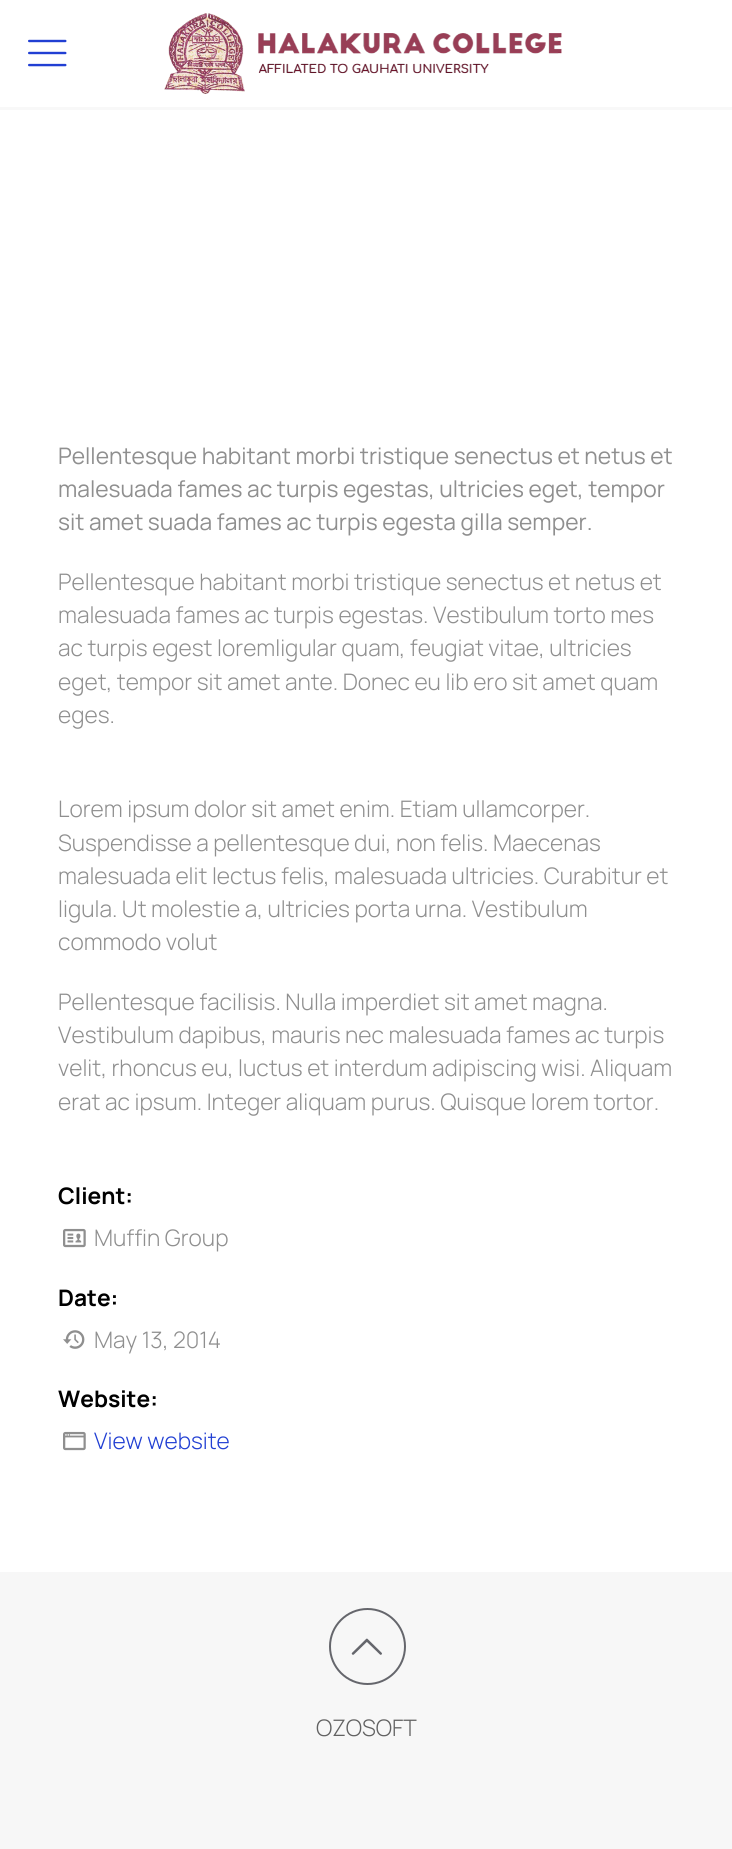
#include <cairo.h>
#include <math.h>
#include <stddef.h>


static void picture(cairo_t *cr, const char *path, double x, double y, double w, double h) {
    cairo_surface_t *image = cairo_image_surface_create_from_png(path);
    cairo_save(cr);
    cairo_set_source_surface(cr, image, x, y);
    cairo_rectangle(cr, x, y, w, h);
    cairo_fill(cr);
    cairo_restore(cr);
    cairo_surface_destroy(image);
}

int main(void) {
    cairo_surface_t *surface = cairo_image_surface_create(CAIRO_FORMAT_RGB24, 732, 1849);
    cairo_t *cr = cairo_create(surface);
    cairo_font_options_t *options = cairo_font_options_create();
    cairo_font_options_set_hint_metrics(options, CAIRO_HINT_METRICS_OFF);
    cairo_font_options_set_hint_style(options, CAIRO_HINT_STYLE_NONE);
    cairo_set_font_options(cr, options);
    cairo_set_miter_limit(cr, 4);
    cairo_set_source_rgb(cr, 1, 1, 1);
    cairo_paint(cr);
    picture(cr, "img1.png", 28, 39, 39, 28);
    picture(cr, "img2.png", 164, 13, 398, 81);
    cairo_set_source_rgb(cr, 0.969, 0.969, 0.969);
    cairo_rectangle(cr, 0, 107, 732, 3);
    cairo_fill(cr);
    cairo_select_font_face(cr, "Manrope", CAIRO_FONT_SLANT_NORMAL, CAIRO_FONT_WEIGHT_NORMAL);
    cairo_set_font_size(cr, 22.75);
    cairo_set_source_rgb(cr, 0.561, 0.561, 0.561);
    cairo_move_to(cr, 58, 464);
    cairo_show_text(cr, "Pellentesque habitant morbi tristique senectus et netus et");
    cairo_move_to(cr, 58, 497);
    cairo_show_text(cr, "malesuada fames ac turpis egestas, ultricies eget, tempor");
    cairo_move_to(cr, 58, 530);
    cairo_show_text(cr, "sit amet suada fames ac turpis egesta gilla semper.");
    cairo_select_font_face(cr, "Manrope Light", CAIRO_FONT_SLANT_NORMAL, CAIRO_FONT_WEIGHT_NORMAL);
    cairo_move_to(cr, 58, 590);
    cairo_show_text(cr, "Pellentesque habitant morbi tristique senectus et netus et");
    cairo_move_to(cr, 58, 623);
    cairo_show_text(cr, "malesuada fames ac turpis egestas. Vestibulum torto mes");
    cairo_move_to(cr, 58, 656);
    cairo_show_text(cr, "ac turpis egest loremligular quam, feugiat vitae, ultricies");
    cairo_move_to(cr, 58, 690);
    cairo_show_text(cr, "eget, tempor sit amet ante. Donec eu lib ero sit amet quam");
    cairo_move_to(cr, 58, 723);
    cairo_show_text(cr, "eges.");
    cairo_move_to(cr, 58, 817);
    cairo_show_text(cr, "Lorem ipsum dolor sit amet enim. Etiam ullamcorper.");
    cairo_move_to(cr, 58, 851);
    cairo_show_text(cr, "Suspendisse a pellentesque dui, non felis. Maecenas");
    cairo_move_to(cr, 58, 884);
    cairo_show_text(cr, "malesuada elit lectus felis, malesuada ultricies. Curabitur et");
    cairo_move_to(cr, 58, 917);
    cairo_show_text(cr, "ligula. Ut molestie a, ultricies porta urna. Vestibulum");
    cairo_move_to(cr, 58, 950);
    cairo_show_text(cr, "commodo volut");
    cairo_move_to(cr, 58, 1010);
    cairo_show_text(cr, "Pellentesque facilisis. Nulla imperdiet sit amet magna.");
    cairo_move_to(cr, 58, 1043);
    cairo_show_text(cr, "Vestibulum dapibus, mauris nec malesuada fames ac turpis");
    cairo_move_to(cr, 58, 1076);
    cairo_show_text(cr, "velit, rhoncus eu, luctus et interdum adipiscing wisi. Aliquam");
    cairo_move_to(cr, 58, 1110);
    cairo_show_text(cr, "erat ac ipsum. Integer aliquam purus. Quisque lorem tortor.");
    cairo_select_font_face(cr, "Manrope", CAIRO_FONT_SLANT_NORMAL, CAIRO_FONT_WEIGHT_BOLD);
    cairo_set_source_rgb(cr, 0, 0, 0);
    cairo_move_to(cr, 58, 1204);
    cairo_show_text(cr, "Client:");
    picture(cr, "img3.png", 63, 1228, 23, 20);
    cairo_select_font_face(cr, "Manrope Light", CAIRO_FONT_SLANT_NORMAL, CAIRO_FONT_WEIGHT_NORMAL);
    cairo_set_source_rgb(cr, 0.561, 0.561, 0.561);
    cairo_move_to(cr, 94, 1246);
    cairo_show_text(cr, "Muffin Group");
    cairo_select_font_face(cr, "Manrope", CAIRO_FONT_SLANT_NORMAL, CAIRO_FONT_WEIGHT_BOLD);
    cairo_set_source_rgb(cr, 0, 0, 0);
    cairo_move_to(cr, 58, 1306);
    cairo_show_text(cr, "Date:");
    picture(cr, "img4.png", 63, 1330, 22, 19);
    cairo_select_font_face(cr, "Manrope Light", CAIRO_FONT_SLANT_NORMAL, CAIRO_FONT_WEIGHT_NORMAL);
    cairo_set_source_rgb(cr, 0.561, 0.561, 0.561);
    cairo_move_to(cr, 94, 1348);
    cairo_show_text(cr, "May 13, 2014");
    cairo_select_font_face(cr, "Manrope", CAIRO_FONT_SLANT_NORMAL, CAIRO_FONT_WEIGHT_BOLD);
    cairo_set_source_rgb(cr, 0, 0, 0);
    cairo_move_to(cr, 58, 1407);
    cairo_show_text(cr, "Website:");
    picture(cr, "img5.png", 63, 1431, 23, 20);
    cairo_select_font_face(cr, "Manrope Light", CAIRO_FONT_SLANT_NORMAL, CAIRO_FONT_WEIGHT_NORMAL);
    cairo_set_source_rgb(cr, 0.129, 0.247, 0.827);
    cairo_move_to(cr, 94, 1449);
    cairo_show_text(cr, "View website");
    cairo_set_source_rgb(cr, 0.965, 0.965, 0.965);
    cairo_rectangle(cr, 0, 1572, 732, 277);
    cairo_fill(cr);
    cairo_arc(cr, 367.5, 1646.5, 37.5, 0, 2 * M_PI);
    cairo_set_source_rgb(cr, 0.396, 0.4, 0.424);
    cairo_stroke(cr);
    picture(cr, "img6.png", 351, 1638, 31, 17);
    cairo_set_source_rgb(cr, 0.384, 0.384, 0.384);
    cairo_move_to(cr, 316, 1736);
    cairo_show_text(cr, "OZOSOFT");
    cairo_surface_write_to_png(surface, "page.png");
    cairo_font_options_destroy(options);
    cairo_destroy(cr);
    cairo_surface_destroy(surface);
    return 0;
}
